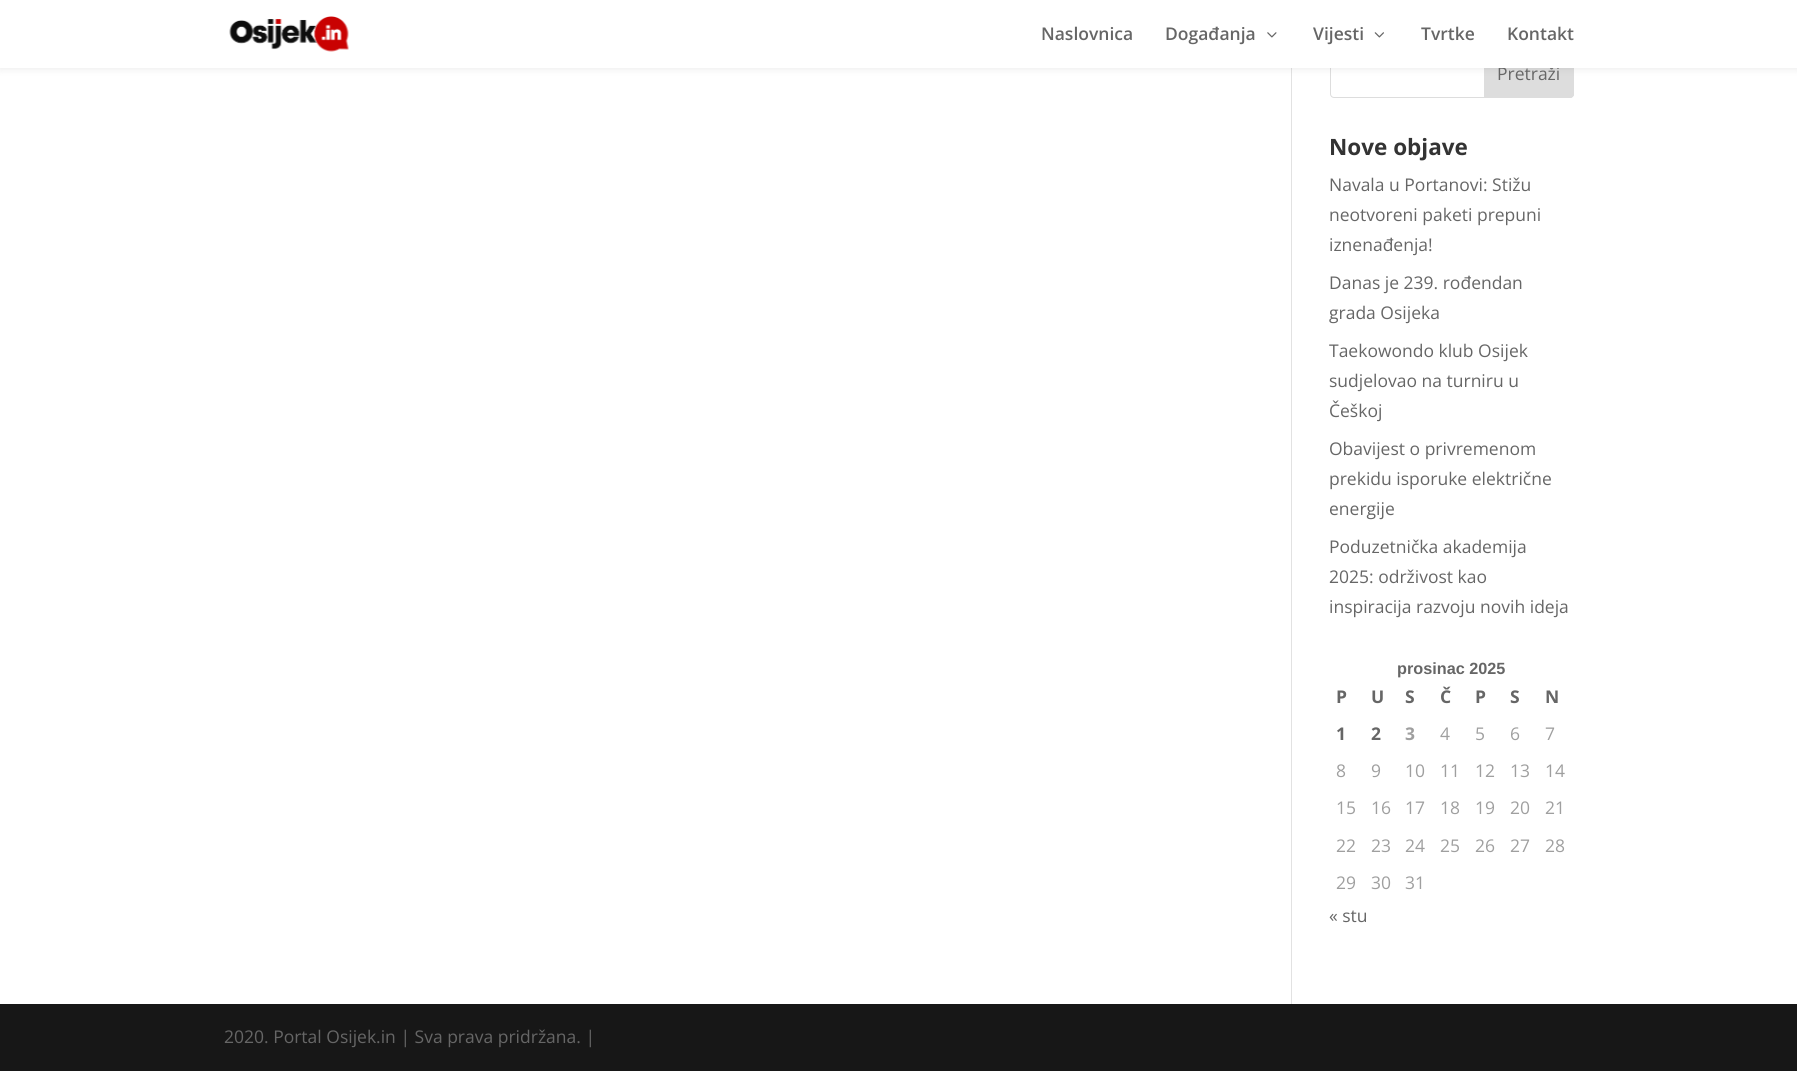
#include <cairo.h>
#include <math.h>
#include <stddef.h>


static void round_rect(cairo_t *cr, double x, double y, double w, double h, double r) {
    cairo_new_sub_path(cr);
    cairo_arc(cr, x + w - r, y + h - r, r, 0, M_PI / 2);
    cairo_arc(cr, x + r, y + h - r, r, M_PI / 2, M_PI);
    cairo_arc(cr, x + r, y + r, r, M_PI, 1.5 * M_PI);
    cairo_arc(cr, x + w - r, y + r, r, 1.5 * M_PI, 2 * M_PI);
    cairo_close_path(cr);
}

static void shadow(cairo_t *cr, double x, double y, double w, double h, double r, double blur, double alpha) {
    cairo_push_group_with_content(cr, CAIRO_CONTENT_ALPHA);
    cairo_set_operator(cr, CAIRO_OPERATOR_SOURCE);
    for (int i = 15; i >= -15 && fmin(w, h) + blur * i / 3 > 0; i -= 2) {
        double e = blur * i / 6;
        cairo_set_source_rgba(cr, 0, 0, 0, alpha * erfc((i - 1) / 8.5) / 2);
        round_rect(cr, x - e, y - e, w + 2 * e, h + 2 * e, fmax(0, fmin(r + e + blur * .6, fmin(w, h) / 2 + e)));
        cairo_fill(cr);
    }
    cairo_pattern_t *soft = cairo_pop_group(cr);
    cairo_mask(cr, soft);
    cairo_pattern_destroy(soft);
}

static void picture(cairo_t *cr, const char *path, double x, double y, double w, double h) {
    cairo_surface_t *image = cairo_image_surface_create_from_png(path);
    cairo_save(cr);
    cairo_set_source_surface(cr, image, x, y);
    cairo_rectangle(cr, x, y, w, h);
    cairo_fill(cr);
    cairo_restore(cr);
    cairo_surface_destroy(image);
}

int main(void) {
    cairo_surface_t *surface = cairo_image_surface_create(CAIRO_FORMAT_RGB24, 1797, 1071);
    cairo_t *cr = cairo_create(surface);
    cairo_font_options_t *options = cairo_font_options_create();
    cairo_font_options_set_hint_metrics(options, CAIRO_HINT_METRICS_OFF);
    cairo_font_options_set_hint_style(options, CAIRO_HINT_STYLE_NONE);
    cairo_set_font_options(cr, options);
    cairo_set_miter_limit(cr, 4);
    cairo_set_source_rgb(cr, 1, 1, 1);
    cairo_paint(cr);
    cairo_set_source_rgb(cr, 0.886, 0.886, 0.886);
    cairo_rectangle(cr, 1291, 68, 1, 936);
    cairo_fill(cr);
    round_rect(cr, 1330.5, 48.5, 243, 49, 3.5);
    cairo_set_source_rgb(cr, 0.867, 0.867, 0.867);
    cairo_set_line_width(cr, 1);
    cairo_stroke(cr);
    cairo_new_path(cr);
    cairo_move_to(cr, 1484.5, 48.5);
    cairo_line_to(cr, 1570, 48.5);
    cairo_curve_to(cr, 1572, 48.5, 1573.5, 50, 1573.5, 52);
    cairo_line_to(cr, 1573.5, 94);
    cairo_curve_to(cr, 1573.5, 96, 1572, 97.5, 1570, 97.5);
    cairo_line_to(cr, 1484.5, 97.5);
    cairo_close_path(cr);
    cairo_fill_preserve(cr);
    cairo_stroke(cr);
    cairo_set_source_rgb(cr, 0, 0, 0);
    shadow(cr, 0, 0, 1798, 68, 0, 4.5, 0.1);
    cairo_select_font_face(cr, "Open Sans", CAIRO_FONT_SLANT_NORMAL, CAIRO_FONT_WEIGHT_NORMAL);
    cairo_set_font_size(cr, 17.5);
    cairo_set_source_rgb(cr, 0.4, 0.4, 0.4);
    cairo_move_to(cr, 1497, 80);
    cairo_show_text(cr, "Pretraži");
    cairo_set_source_rgb(cr, 1, 1, 1);
    cairo_rectangle(cr, 0, 0, 1797, 68);
    cairo_fill(cr);
    picture(cr, "img1.png", 229, 16, 120, 36);
    cairo_select_font_face(cr, "Open Sans SemiBold", CAIRO_FONT_SLANT_NORMAL, CAIRO_FONT_WEIGHT_NORMAL);
    cairo_set_source_rgb(cr, 0.4, 0.4, 0.4);
    cairo_move_to(cr, 1041, 40);
    cairo_show_text(cr, "Naslovnica");
    cairo_move_to(cr, 1165, 40);
    cairo_show_text(cr, "Događanja");
    picture(cr, "img2.png", 1267, 32, 10, 6);
    cairo_move_to(cr, 1313, 40);
    cairo_show_text(cr, "Vijesti");
    picture(cr, "img3.png", 1374, 32, 10, 6);
    cairo_move_to(cr, 1421, 40);
    cairo_show_text(cr, "Tvrtke");
    cairo_move_to(cr, 1507, 40);
    cairo_show_text(cr, "Kontakt");
    cairo_select_font_face(cr, "Open Sans", CAIRO_FONT_SLANT_NORMAL, CAIRO_FONT_WEIGHT_BOLD);
    cairo_set_font_size(cr, 22.5);
    cairo_set_source_rgb(cr, 0.2, 0.2, 0.2);
    cairo_move_to(cr, 1329, 155);
    cairo_show_text(cr, "Nove objave");
    cairo_select_font_face(cr, "Open Sans", CAIRO_FONT_SLANT_NORMAL, CAIRO_FONT_WEIGHT_NORMAL);
    cairo_set_font_size(cr, 17.5);
    cairo_set_source_rgb(cr, 0.4, 0.4, 0.4);
    cairo_move_to(cr, 1329, 191);
    cairo_show_text(cr, "Navala u Portanovi: Stižu");
    cairo_move_to(cr, 1329, 221);
    cairo_show_text(cr, "neotvoreni paketi prepuni");
    cairo_move_to(cr, 1329, 251);
    cairo_show_text(cr, "iznenađenja!");
    cairo_move_to(cr, 1329, 289);
    cairo_show_text(cr, "Danas je 239. rođendan");
    cairo_move_to(cr, 1329, 319);
    cairo_show_text(cr, "grada Osijeka");
    cairo_move_to(cr, 1329, 357);
    cairo_show_text(cr, "Taekowondo klub Osijek");
    cairo_move_to(cr, 1329, 387);
    cairo_show_text(cr, "sudjelovao na turniru u");
    cairo_move_to(cr, 1329, 417);
    cairo_show_text(cr, "Češkoj");
    cairo_move_to(cr, 1329, 455);
    cairo_show_text(cr, "Obavijest o privremenom");
    cairo_move_to(cr, 1329, 485);
    cairo_show_text(cr, "prekidu isporuke električne");
    cairo_move_to(cr, 1329, 515);
    cairo_show_text(cr, "energije");
    cairo_move_to(cr, 1329, 553);
    cairo_show_text(cr, "Poduzetnička akademija");
    cairo_move_to(cr, 1329, 583);
    cairo_show_text(cr, "2025: održivost kao");
    cairo_move_to(cr, 1329, 613);
    cairo_show_text(cr, "inspiracija razvoju novih ideja");
    cairo_select_font_face(cr, "Liberation Sans", CAIRO_FONT_SLANT_NORMAL, CAIRO_FONT_WEIGHT_BOLD);
    cairo_set_font_size(cr, 16.25);
    cairo_move_to(cr, 1397, 674);
    cairo_show_text(cr, "prosinac 2025");
    cairo_select_font_face(cr, "Open Sans", CAIRO_FONT_SLANT_NORMAL, CAIRO_FONT_WEIGHT_BOLD);
    cairo_set_font_size(cr, 17.5);
    cairo_move_to(cr, 1336, 703);
    cairo_show_text(cr, "P");
    cairo_move_to(cr, 1371, 703);
    cairo_show_text(cr, "U");
    cairo_move_to(cr, 1405, 703);
    cairo_show_text(cr, "S");
    cairo_move_to(cr, 1440, 703);
    cairo_show_text(cr, "Č");
    cairo_move_to(cr, 1475, 703);
    cairo_show_text(cr, "P");
    cairo_move_to(cr, 1510, 703);
    cairo_show_text(cr, "S");
    cairo_move_to(cr, 1545, 703);
    cairo_show_text(cr, "N");
    cairo_move_to(cr, 1336, 740);
    cairo_show_text(cr, "1");
    cairo_move_to(cr, 1371, 740);
    cairo_show_text(cr, "2");
    cairo_set_source_rgb(cr, 0.624, 0.624, 0.624);
    cairo_move_to(cr, 1405, 740);
    cairo_show_text(cr, "3");
    cairo_select_font_face(cr, "Open Sans", CAIRO_FONT_SLANT_NORMAL, CAIRO_FONT_WEIGHT_NORMAL);
    cairo_move_to(cr, 1440, 740);
    cairo_show_text(cr, "4");
    cairo_move_to(cr, 1475, 740);
    cairo_show_text(cr, "5");
    cairo_move_to(cr, 1510, 740);
    cairo_show_text(cr, "6");
    cairo_move_to(cr, 1545, 740);
    cairo_show_text(cr, "7");
    cairo_move_to(cr, 1336, 777);
    cairo_show_text(cr, "8");
    cairo_move_to(cr, 1371, 777);
    cairo_show_text(cr, "9");
    cairo_move_to(cr, 1405, 777);
    cairo_show_text(cr, "10");
    cairo_move_to(cr, 1440, 777);
    cairo_show_text(cr, "11");
    cairo_move_to(cr, 1475, 777);
    cairo_show_text(cr, "12");
    cairo_move_to(cr, 1510, 777);
    cairo_show_text(cr, "13");
    cairo_move_to(cr, 1545, 777);
    cairo_show_text(cr, "14");
    cairo_move_to(cr, 1336, 814);
    cairo_show_text(cr, "15");
    cairo_move_to(cr, 1371, 814);
    cairo_show_text(cr, "16");
    cairo_move_to(cr, 1405, 814);
    cairo_show_text(cr, "17");
    cairo_move_to(cr, 1440, 814);
    cairo_show_text(cr, "18");
    cairo_move_to(cr, 1475, 814);
    cairo_show_text(cr, "19");
    cairo_move_to(cr, 1510, 814);
    cairo_show_text(cr, "20");
    cairo_move_to(cr, 1545, 814);
    cairo_show_text(cr, "21");
    cairo_move_to(cr, 1336, 852);
    cairo_show_text(cr, "22");
    cairo_move_to(cr, 1371, 852);
    cairo_show_text(cr, "23");
    cairo_move_to(cr, 1405, 852);
    cairo_show_text(cr, "24");
    cairo_move_to(cr, 1440, 852);
    cairo_show_text(cr, "25");
    cairo_move_to(cr, 1475, 852);
    cairo_show_text(cr, "26");
    cairo_move_to(cr, 1510, 852);
    cairo_show_text(cr, "27");
    cairo_move_to(cr, 1545, 852);
    cairo_show_text(cr, "28");
    cairo_move_to(cr, 1336, 889);
    cairo_show_text(cr, "29");
    cairo_move_to(cr, 1371, 889);
    cairo_show_text(cr, "30");
    cairo_move_to(cr, 1405, 889);
    cairo_show_text(cr, "31");
    cairo_set_source_rgb(cr, 0.4, 0.4, 0.4);
    cairo_move_to(cr, 1329, 922);
    cairo_show_text(cr, "« stu");
    cairo_set_source_rgb(cr, 0.09, 0.09, 0.09);
    cairo_rectangle(cr, 0, 1004, 1797, 67);
    cairo_fill(cr);
    cairo_set_source_rgb(cr, 0.4, 0.4, 0.4);
    cairo_move_to(cr, 224, 1043);
    cairo_show_text(cr, "2020. Portal Osijek.in | Sva prava pridržana. |");
    cairo_surface_write_to_png(surface, "page.png");
    cairo_font_options_destroy(options);
    cairo_destroy(cr);
    cairo_surface_destroy(surface);
    return 0;
}
